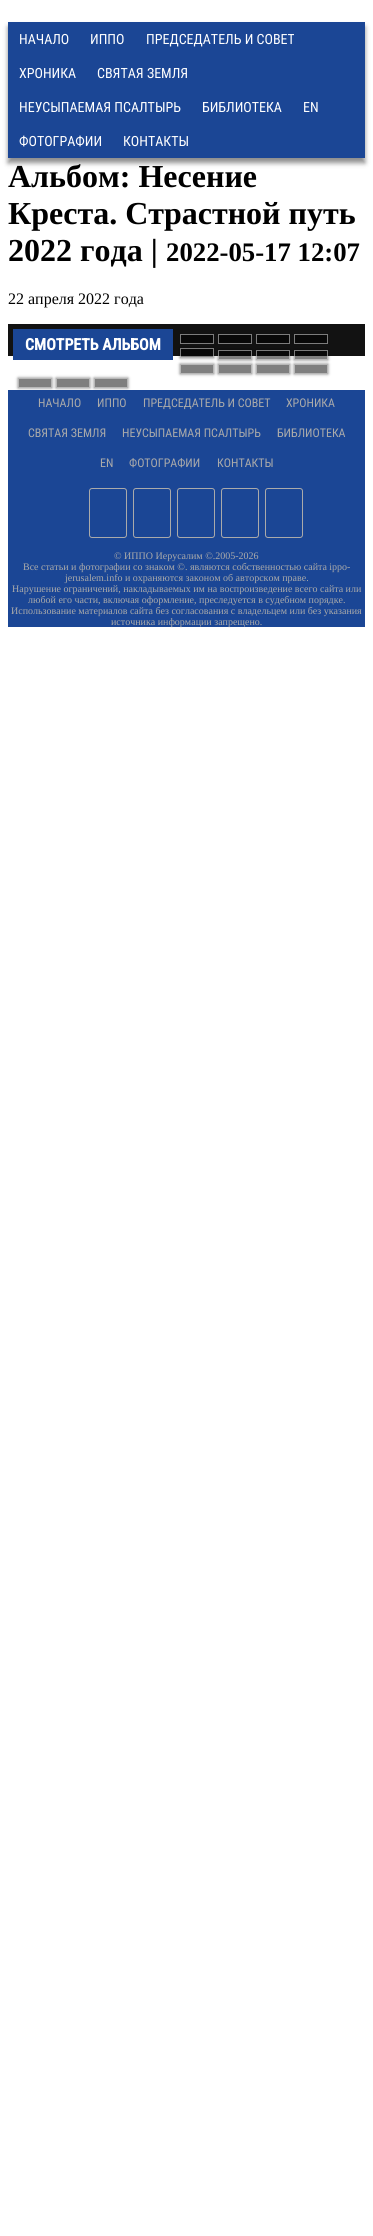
#include <cairo.h>
#include <math.h>
#include <stddef.h>


static void round_rect(cairo_t *cr, double x, double y, double w, double h, double r) {
    cairo_new_sub_path(cr);
    cairo_arc(cr, x + w - r, y + h - r, r, 0, M_PI / 2);
    cairo_arc(cr, x + r, y + h - r, r, M_PI / 2, M_PI);
    cairo_arc(cr, x + r, y + r, r, M_PI, 1.5 * M_PI);
    cairo_arc(cr, x + w - r, y + r, r, 1.5 * M_PI, 2 * M_PI);
    cairo_close_path(cr);
}

static void shadow(cairo_t *cr, double x, double y, double w, double h, double r, double blur, double alpha) {
    cairo_push_group_with_content(cr, CAIRO_CONTENT_ALPHA);
    cairo_set_operator(cr, CAIRO_OPERATOR_SOURCE);
    for (int i = 15; i >= -15 && fmin(w, h) + blur * i / 3 > 0; i -= 2) {
        double e = blur * i / 6;
        cairo_set_source_rgba(cr, 0, 0, 0, alpha * erfc((i - 1) / 8.5) / 2);
        round_rect(cr, x - e, y - e, w + 2 * e, h + 2 * e, fmax(0, fmin(r + e + blur * .6, fmin(w, h) / 2 + e)));
        cairo_fill(cr);
    }
    cairo_pattern_t *soft = cairo_pop_group(cr);
    cairo_mask(cr, soft);
    cairo_pattern_destroy(soft);
}

int main(void) {
    cairo_surface_t *surface = cairo_image_surface_create(CAIRO_FORMAT_RGB24, 373, 2236);
    cairo_t *cr = cairo_create(surface);
    cairo_font_options_t *options = cairo_font_options_create();
    cairo_font_options_set_hint_metrics(options, CAIRO_HINT_METRICS_OFF);
    cairo_font_options_set_hint_style(options, CAIRO_HINT_STYLE_NONE);
    cairo_set_font_options(cr, options);
    cairo_set_miter_limit(cr, 4);
    cairo_set_source_rgb(cr, 1, 1, 1);
    cairo_paint(cr);
    cairo_set_source_rgb(cr, 0.502, 0.502, 0.502);
    cairo_rectangle(cr, 294, 356, 34, 4);
    cairo_fill(cr);
    cairo_rectangle(cr, 256, 356, 34, 4);
    cairo_fill(cr);
    cairo_rectangle(cr, 218, 356, 34, 4);
    cairo_fill(cr);
    cairo_rectangle(cr, 180, 356, 34, 2);
    cairo_fill(cr);
    cairo_set_source_rgb(cr, 0, 0, 0);
    shadow(cr, 8, 27, 357, 136, 0, 2.5, 0.45);
    cairo_set_source_rgb(cr, 0.106, 0.275, 0.584);
    cairo_rectangle(cr, 8, 22, 357, 136);
    cairo_fill(cr);
    cairo_select_font_face(cr, "Roboto Condensed", CAIRO_FONT_SLANT_NORMAL, CAIRO_FONT_WEIGHT_NORMAL);
    cairo_set_font_size(cr, 14);
    cairo_set_source_rgb(cr, 1, 1, 1);
    cairo_move_to(cr, 19, 44);
    cairo_show_text(cr, "НАЧАЛО");
    cairo_move_to(cr, 90, 44);
    cairo_show_text(cr, "ИППО");
    cairo_move_to(cr, 146, 44);
    cairo_show_text(cr, "ПРЕДСЕДАТЕЛЬ И СОВЕТ");
    cairo_move_to(cr, 19, 78);
    cairo_show_text(cr, "ХРОНИКА");
    cairo_move_to(cr, 97, 78);
    cairo_show_text(cr, "СВЯТАЯ ЗЕМЛЯ");
    cairo_move_to(cr, 19, 112);
    cairo_show_text(cr, "НЕУСЫПАЕМАЯ ПСАЛТЫРЬ");
    cairo_move_to(cr, 202, 112);
    cairo_show_text(cr, "БИБЛИОТЕКА");
    cairo_move_to(cr, 303, 112);
    cairo_show_text(cr, "EN");
    cairo_move_to(cr, 19, 146);
    cairo_show_text(cr, "ФОТОГРАФИИ");
    cairo_move_to(cr, 123, 146);
    cairo_show_text(cr, "КОНТАКТЫ");
    cairo_select_font_face(cr, "Liberation Serif", CAIRO_FONT_SLANT_NORMAL, CAIRO_FONT_WEIGHT_BOLD);
    cairo_set_font_size(cr, 32);
    cairo_set_source_rgb(cr, 0, 0, 0);
    cairo_move_to(cr, 8, 187);
    cairo_show_text(cr, "Альбом: Несение");
    cairo_move_to(cr, 8, 224);
    cairo_show_text(cr, "Креста. Страстной путь");
    cairo_move_to(cr, 8, 261);
    cairo_show_text(cr, "2022 года |");
    cairo_set_font_size(cr, 26.75);
    cairo_move_to(cr, 166, 261);
    cairo_show_text(cr, "2022-05-17 12:07");
    cairo_select_font_face(cr, "Liberation Serif", CAIRO_FONT_SLANT_NORMAL, CAIRO_FONT_WEIGHT_NORMAL);
    cairo_set_font_size(cr, 16);
    cairo_move_to(cr, 8, 304);
    cairo_show_text(cr, "22 апреля 2022 года");
    cairo_set_source_rgb(cr, 0.071, 0.071, 0.071);
    cairo_rectangle(cr, 8, 324, 357, 32);
    cairo_fill(cr);
    cairo_set_source_rgb(cr, 0.035, 0.035, 0.035);
    cairo_rectangle(cr, 294, 350, 34, 6);
    cairo_fill(cr);
    cairo_rectangle(cr, 256, 350, 34, 6);
    cairo_fill(cr);
    cairo_rectangle(cr, 218, 350, 34, 6);
    cairo_fill(cr);
    cairo_rectangle(cr, 180, 348, 34, 8);
    cairo_fill(cr);
    cairo_rectangle(cr, 180.5, 334.5, 33, 9);
    cairo_fill_preserve(cr);
    cairo_set_source_rgb(cr, 0.486, 0.486, 0.486);
    cairo_set_line_width(cr, 1);
    cairo_stroke(cr);
    cairo_set_source_rgb(cr, 0.035, 0.035, 0.035);
    cairo_rectangle(cr, 218.5, 334.5, 33, 9);
    cairo_fill_preserve(cr);
    cairo_set_source_rgb(cr, 0.486, 0.486, 0.486);
    cairo_stroke(cr);
    cairo_set_source_rgb(cr, 0.035, 0.035, 0.035);
    cairo_rectangle(cr, 256.5, 334.5, 33, 9);
    cairo_fill_preserve(cr);
    cairo_set_source_rgb(cr, 0.486, 0.486, 0.486);
    cairo_stroke(cr);
    cairo_set_source_rgb(cr, 0.035, 0.035, 0.035);
    cairo_rectangle(cr, 294.5, 334.5, 33, 9);
    cairo_fill_preserve(cr);
    cairo_set_source_rgb(cr, 0.486, 0.486, 0.486);
    cairo_stroke(cr);
    cairo_save(cr);
    cairo_set_fill_rule(cr, CAIRO_FILL_RULE_EVEN_ODD);
    cairo_new_path(cr);
    cairo_move_to(cr, 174, 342);
    cairo_line_to(cr, 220, 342);
    cairo_line_to(cr, 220, 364);
    cairo_line_to(cr, 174, 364);
    cairo_close_path(cr);
    cairo_move_to(cr, 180, 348);
    cairo_line_to(cr, 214, 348);
    cairo_line_to(cr, 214, 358);
    cairo_line_to(cr, 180, 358);
    cairo_close_path(cr);
    cairo_clip(cr);
    cairo_set_source_rgb(cr, 0, 0, 0);
    shadow(cr, 180, 348, 34, 10, 0, 1.5, 0.5);
    cairo_restore(cr);
    cairo_rectangle(cr, 180.5, 348.5, 33, 9);
    cairo_set_source_rgba(cr, 0.937, 0.937, 0.937, 0.5);
    cairo_stroke(cr);
    cairo_save(cr);
    cairo_set_fill_rule(cr, CAIRO_FILL_RULE_EVEN_ODD);
    cairo_new_path(cr);
    cairo_move_to(cr, 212, 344);
    cairo_line_to(cr, 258, 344);
    cairo_line_to(cr, 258, 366);
    cairo_line_to(cr, 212, 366);
    cairo_close_path(cr);
    cairo_move_to(cr, 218, 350);
    cairo_line_to(cr, 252, 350);
    cairo_line_to(cr, 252, 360);
    cairo_line_to(cr, 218, 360);
    cairo_close_path(cr);
    cairo_clip(cr);
    cairo_set_source_rgb(cr, 0, 0, 0);
    shadow(cr, 218, 350, 34, 10, 0, 1.5, 0.5);
    cairo_restore(cr);
    cairo_rectangle(cr, 218.5, 350.5, 33, 9);
    cairo_stroke(cr);
    cairo_save(cr);
    cairo_set_fill_rule(cr, CAIRO_FILL_RULE_EVEN_ODD);
    cairo_new_path(cr);
    cairo_move_to(cr, 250, 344);
    cairo_line_to(cr, 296, 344);
    cairo_line_to(cr, 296, 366);
    cairo_line_to(cr, 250, 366);
    cairo_close_path(cr);
    cairo_move_to(cr, 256, 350);
    cairo_line_to(cr, 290, 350);
    cairo_line_to(cr, 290, 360);
    cairo_line_to(cr, 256, 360);
    cairo_close_path(cr);
    cairo_clip(cr);
    cairo_set_source_rgb(cr, 0, 0, 0);
    shadow(cr, 256, 350, 34, 10, 0, 1.5, 0.5);
    cairo_restore(cr);
    cairo_rectangle(cr, 256.5, 350.5, 33, 9);
    cairo_stroke(cr);
    cairo_save(cr);
    cairo_set_fill_rule(cr, CAIRO_FILL_RULE_EVEN_ODD);
    cairo_new_path(cr);
    cairo_move_to(cr, 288, 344);
    cairo_line_to(cr, 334, 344);
    cairo_line_to(cr, 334, 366);
    cairo_line_to(cr, 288, 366);
    cairo_close_path(cr);
    cairo_move_to(cr, 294, 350);
    cairo_line_to(cr, 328, 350);
    cairo_line_to(cr, 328, 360);
    cairo_line_to(cr, 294, 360);
    cairo_close_path(cr);
    cairo_clip(cr);
    cairo_set_source_rgb(cr, 0, 0, 0);
    shadow(cr, 294, 350, 34, 10, 0, 1.5, 0.5);
    cairo_restore(cr);
    cairo_rectangle(cr, 294.5, 350.5, 33, 9);
    cairo_stroke(cr);
    cairo_set_source_rgb(cr, 0, 0, 0);
    shadow(cr, 180, 364, 34, 10, 0, 1.5, 0.5);
    cairo_set_source_rgb(cr, 0.502, 0.502, 0.502);
    cairo_rectangle(cr, 180.5, 364.5, 33, 9);
    cairo_fill_preserve(cr);
    cairo_set_source_rgb(cr, 0.722, 0.722, 0.722);
    cairo_stroke(cr);
    cairo_set_source_rgb(cr, 0, 0, 0);
    shadow(cr, 218, 364, 34, 10, 0, 1.5, 0.5);
    cairo_set_source_rgb(cr, 0.498, 0.498, 0.498);
    cairo_rectangle(cr, 218.5, 364.5, 33, 9);
    cairo_fill_preserve(cr);
    cairo_set_source_rgb(cr, 0.718, 0.718, 0.718);
    cairo_stroke(cr);
    cairo_set_source_rgb(cr, 0, 0, 0);
    shadow(cr, 256, 364, 34, 10, 0, 1.5, 0.5);
    cairo_set_source_rgb(cr, 0.498, 0.498, 0.498);
    cairo_rectangle(cr, 256.5, 364.5, 33, 9);
    cairo_fill_preserve(cr);
    cairo_set_source_rgb(cr, 0.718, 0.718, 0.718);
    cairo_stroke(cr);
    cairo_set_source_rgb(cr, 0, 0, 0);
    shadow(cr, 294, 364, 34, 10, 0, 1.5, 0.5);
    cairo_set_source_rgb(cr, 0.498, 0.498, 0.498);
    cairo_rectangle(cr, 294.5, 364.5, 33, 9);
    cairo_fill_preserve(cr);
    cairo_set_source_rgb(cr, 0.718, 0.718, 0.718);
    cairo_stroke(cr);
    cairo_set_source_rgb(cr, 0, 0, 0);
    shadow(cr, 18, 378, 34, 10, 0, 1.5, 0.5);
    cairo_set_source_rgb(cr, 0.502, 0.502, 0.502);
    cairo_rectangle(cr, 18.5, 378.5, 33, 9);
    cairo_fill_preserve(cr);
    cairo_set_source_rgb(cr, 0.722, 0.722, 0.722);
    cairo_stroke(cr);
    cairo_set_source_rgb(cr, 0, 0, 0);
    shadow(cr, 56, 378, 34, 10, 0, 1.5, 0.5);
    cairo_set_source_rgb(cr, 0.498, 0.498, 0.498);
    cairo_rectangle(cr, 56.5, 378.5, 33, 9);
    cairo_fill_preserve(cr);
    cairo_set_source_rgb(cr, 0.718, 0.718, 0.718);
    cairo_stroke(cr);
    cairo_set_source_rgb(cr, 0, 0, 0);
    shadow(cr, 94, 378, 34, 10, 0, 1.5, 0.5);
    cairo_set_source_rgb(cr, 0.498, 0.498, 0.498);
    cairo_rectangle(cr, 94.5, 378.5, 33, 9);
    cairo_fill_preserve(cr);
    cairo_set_source_rgb(cr, 0.718, 0.718, 0.718);
    cairo_stroke(cr);
    cairo_set_source_rgb(cr, 0.106, 0.275, 0.584);
    cairo_rectangle(cr, 13, 329, 160, 31);
    cairo_fill(cr);
    cairo_select_font_face(cr, "Roboto Condensed", CAIRO_FONT_SLANT_NORMAL, CAIRO_FONT_WEIGHT_BOLD);
    cairo_set_source_rgb(cr, 1, 1, 1);
    cairo_move_to(cr, 25, 350);
    cairo_show_text(cr, "СМОТРЕТЬ АЛЬБОМ");
    cairo_set_source_rgb(cr, 0.106, 0.275, 0.584);
    cairo_rectangle(cr, 8, 390, 357, 237);
    cairo_fill(cr);
    cairo_select_font_face(cr, "Roboto Condensed", CAIRO_FONT_SLANT_NORMAL, CAIRO_FONT_WEIGHT_NORMAL);
    cairo_set_font_size(cr, 12);
    cairo_set_source_rgb(cr, 0.667, 0.667, 0.667);
    cairo_move_to(cr, 38, 407);
    cairo_show_text(cr, "НАЧАЛО");
    cairo_move_to(cr, 97, 407);
    cairo_show_text(cr, "ИППО");
    cairo_move_to(cr, 143, 407);
    cairo_show_text(cr, "ПРЕДСЕДАТЕЛЬ И СОВЕТ");
    cairo_move_to(cr, 286, 407);
    cairo_show_text(cr, "ХРОНИКА");
    cairo_move_to(cr, 28, 437);
    cairo_show_text(cr, "СВЯТАЯ ЗЕМЛЯ");
    cairo_move_to(cr, 122, 437);
    cairo_show_text(cr, "НЕУСЫПАЕМАЯ ПСАЛТЫРЬ");
    cairo_move_to(cr, 277, 437);
    cairo_show_text(cr, "БИБЛИОТЕКА");
    cairo_move_to(cr, 100, 467);
    cairo_show_text(cr, "EN");
    cairo_move_to(cr, 129, 467);
    cairo_show_text(cr, "ФОТОГРАФИИ");
    cairo_move_to(cr, 217, 467);
    cairo_show_text(cr, "КОНТАКТЫ");
    round_rect(cr, 89.5, 488.5, 37, 49, 2.5);
    cairo_stroke(cr);
    round_rect(cr, 133.5, 488.5, 37, 49, 2.5);
    cairo_stroke(cr);
    round_rect(cr, 177.5, 488.5, 37, 49, 2.5);
    cairo_stroke(cr);
    round_rect(cr, 221.5, 488.5, 37, 49, 2.5);
    cairo_stroke(cr);
    round_rect(cr, 265.5, 488.5, 37, 49, 2.5);
    cairo_stroke(cr);
    cairo_select_font_face(cr, "Liberation Serif", CAIRO_FONT_SLANT_NORMAL, CAIRO_FONT_WEIGHT_NORMAL);
    cairo_set_font_size(cr, 10);
    cairo_move_to(cr, 114, 559);
    cairo_show_text(cr, "© ИППО Иерусалим ©.2005-2026");
    cairo_move_to(cr, 23, 570);
    cairo_show_text(cr, "Все статьи и фотографии со знаком ©. являются собственностью сайта ippo-");
    cairo_move_to(cr, 65, 581);
    cairo_show_text(cr, "jerusalem.info и охраняются законом об авторском праве.");
    cairo_move_to(cr, 12, 592);
    cairo_show_text(cr, "Нарушение ограничений, накладываемых им на воспроизведение всего сайта или");
    cairo_move_to(cr, 28, 603);
    cairo_show_text(cr, "любой его части, включая оформление, преследуется в судебном порядке.");
    cairo_move_to(cr, 11, 614);
    cairo_show_text(cr, "Использование материалов сайта без согласования с владельцем или без указания");
    cairo_move_to(cr, 111, 625);
    cairo_show_text(cr, "источника информации запрещено.");
    cairo_surface_write_to_png(surface, "page.png");
    cairo_font_options_destroy(options);
    cairo_destroy(cr);
    cairo_surface_destroy(surface);
    return 0;
}
